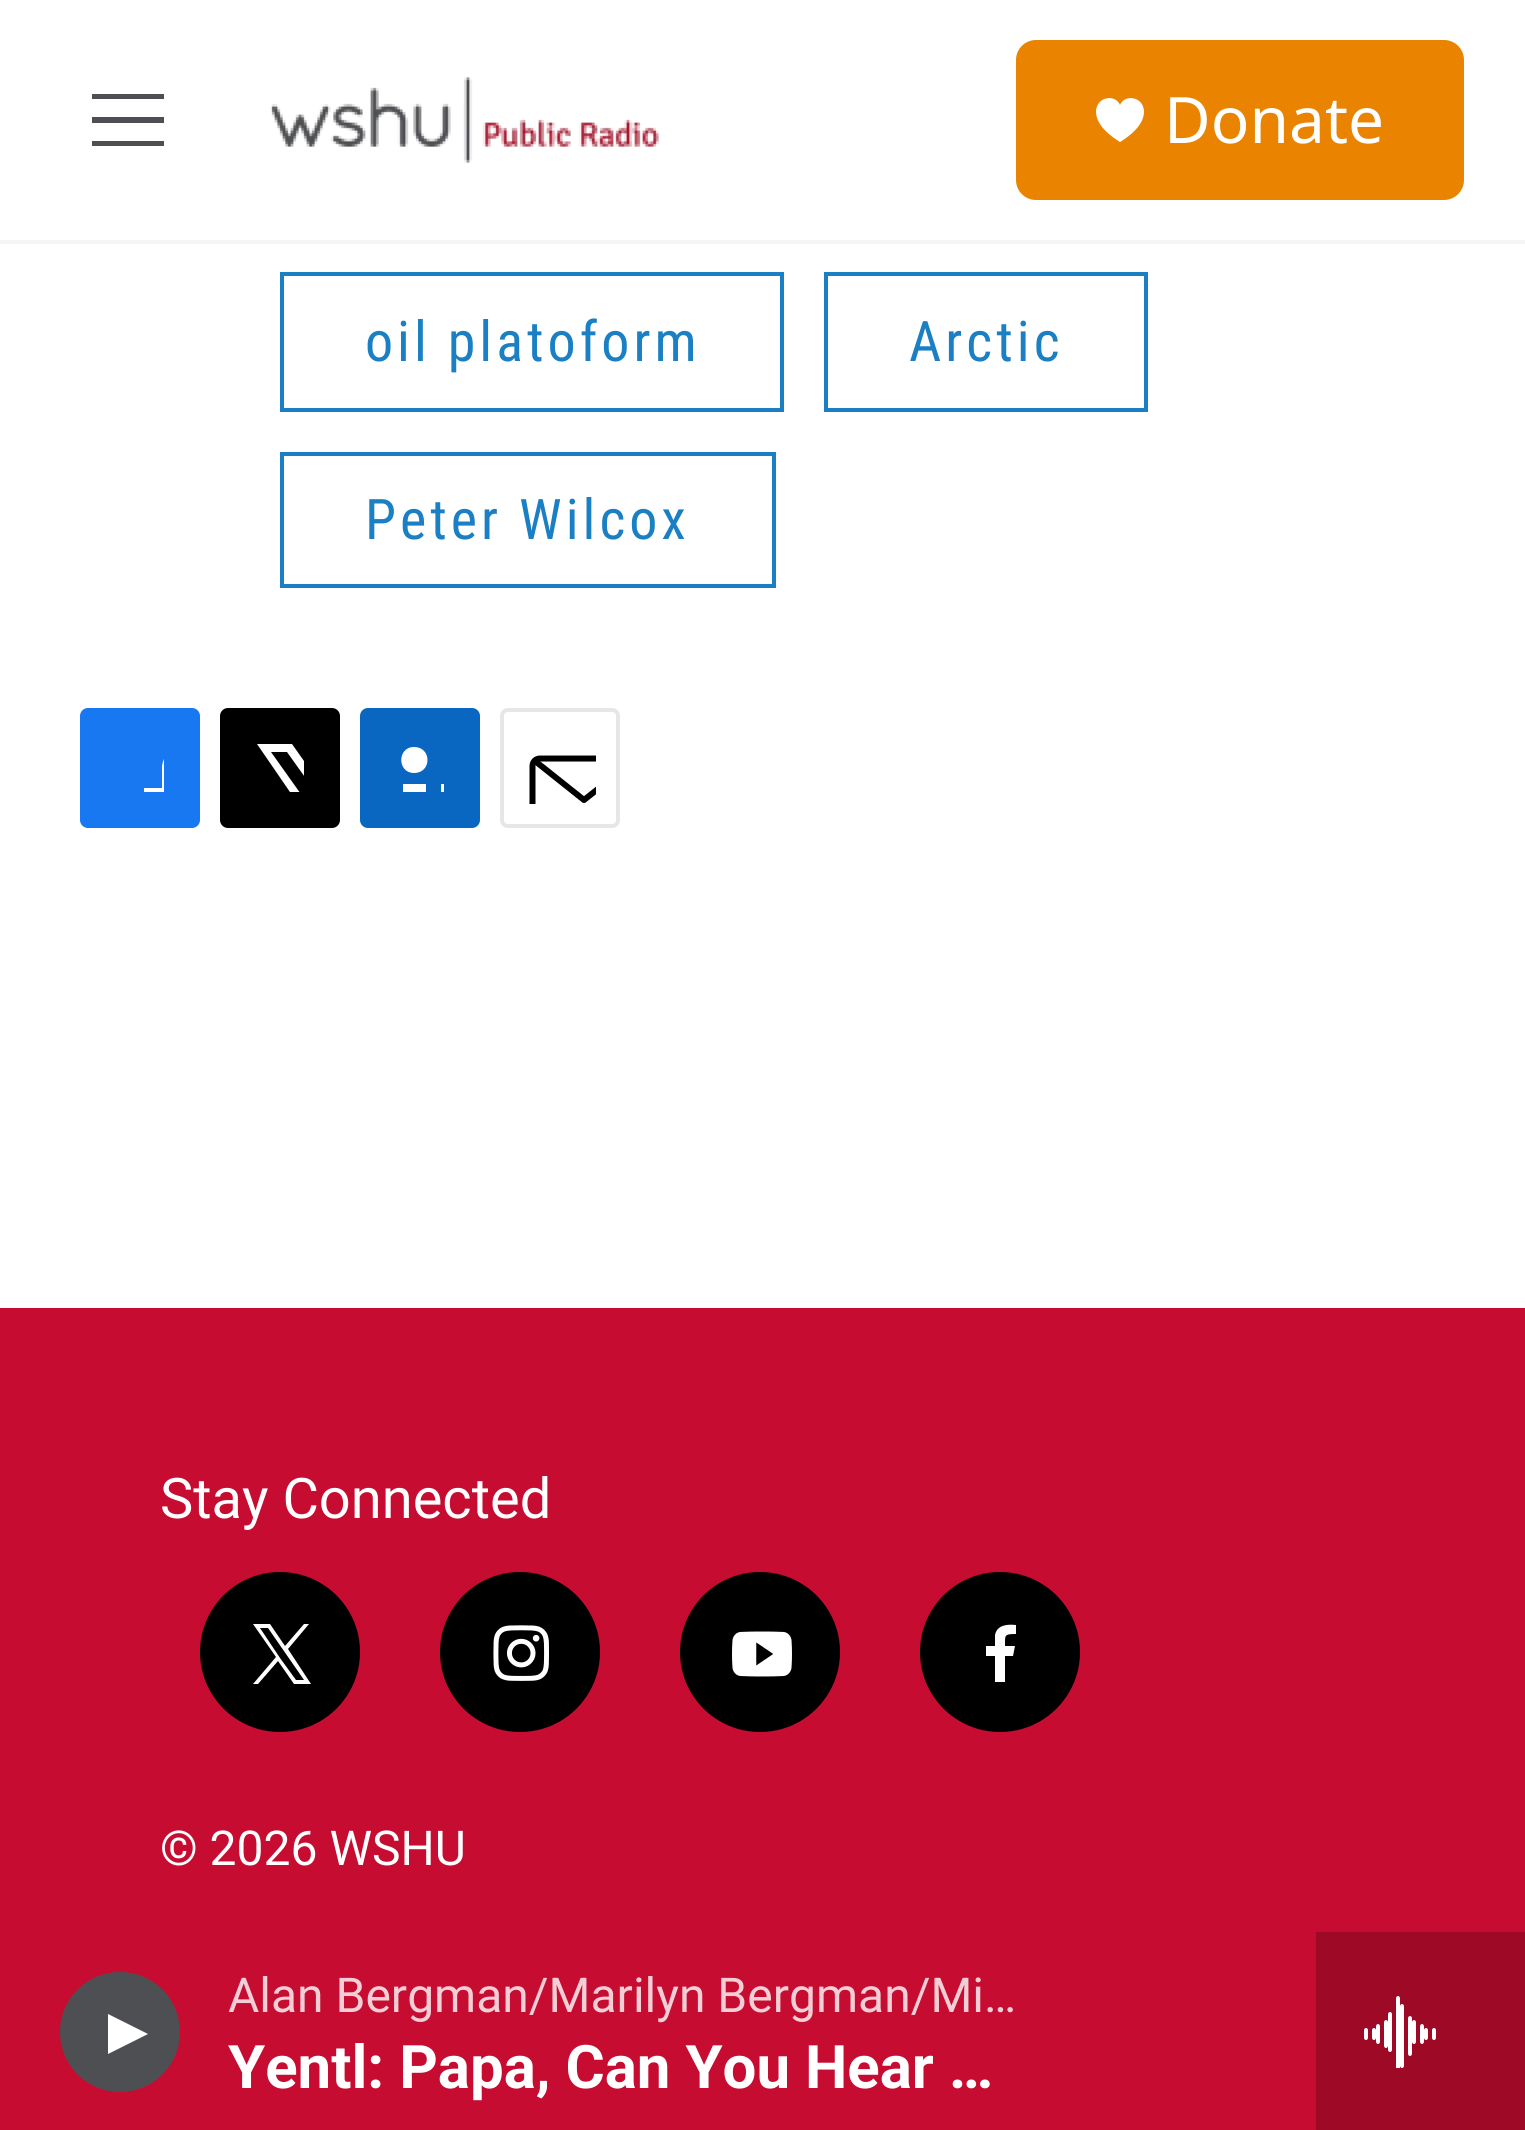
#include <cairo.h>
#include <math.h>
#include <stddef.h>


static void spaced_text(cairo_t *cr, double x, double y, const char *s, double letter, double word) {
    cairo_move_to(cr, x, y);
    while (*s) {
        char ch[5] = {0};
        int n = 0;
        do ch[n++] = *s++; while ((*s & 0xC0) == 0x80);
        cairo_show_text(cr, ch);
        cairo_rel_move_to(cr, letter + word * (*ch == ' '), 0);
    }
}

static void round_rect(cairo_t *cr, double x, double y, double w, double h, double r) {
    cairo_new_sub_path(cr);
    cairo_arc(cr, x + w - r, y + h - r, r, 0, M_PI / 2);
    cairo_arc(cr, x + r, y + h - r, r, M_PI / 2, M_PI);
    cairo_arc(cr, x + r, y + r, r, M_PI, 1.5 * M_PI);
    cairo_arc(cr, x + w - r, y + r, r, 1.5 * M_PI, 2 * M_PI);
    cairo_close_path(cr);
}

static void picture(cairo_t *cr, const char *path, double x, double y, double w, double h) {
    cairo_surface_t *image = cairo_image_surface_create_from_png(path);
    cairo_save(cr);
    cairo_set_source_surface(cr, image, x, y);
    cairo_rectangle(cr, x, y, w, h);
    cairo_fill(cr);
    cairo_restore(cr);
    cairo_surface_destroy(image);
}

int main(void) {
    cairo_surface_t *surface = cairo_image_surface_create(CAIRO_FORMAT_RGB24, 1525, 2130);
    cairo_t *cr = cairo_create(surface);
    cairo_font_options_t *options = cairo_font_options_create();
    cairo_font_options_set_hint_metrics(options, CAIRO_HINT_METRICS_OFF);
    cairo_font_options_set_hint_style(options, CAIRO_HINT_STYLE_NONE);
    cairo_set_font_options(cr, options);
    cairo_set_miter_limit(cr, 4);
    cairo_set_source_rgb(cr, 1, 1, 1);
    cairo_paint(cr);
    cairo_set_source_rgb(cr, 0.961, 0.961, 0.961);
    cairo_rectangle(cr, 0, 240, 1525, 4);
    cairo_fill(cr);
    cairo_set_source_rgb(cr, 0.302, 0.31, 0.325);
    cairo_set_fill_rule(cr, CAIRO_FILL_RULE_EVEN_ODD);
    cairo_new_path(cr);
    cairo_move_to(cr, 92, 123);
    cairo_line_to(cr, 92, 117);
    cairo_line_to(cr, 164, 117);
    cairo_line_to(cr, 164, 123);
    cairo_close_path(cr);
    cairo_move_to(cr, 92, 99);
    cairo_line_to(cr, 92, 94);
    cairo_line_to(cr, 164, 94);
    cairo_line_to(cr, 164, 99);
    cairo_close_path(cr);
    cairo_move_to(cr, 92, 146);
    cairo_line_to(cr, 92, 141);
    cairo_line_to(cr, 164, 141);
    cairo_line_to(cr, 164, 146);
    cairo_close_path(cr);
    cairo_fill(cr);
    picture(cr, "img1.png", 269, 77, 390, 86);
    cairo_set_source_rgb(cr, 0.914, 0.514, 0);
    round_rect(cr, 1016, 40, 448, 160, 20);
    cairo_fill(cr);
    cairo_set_source_rgb(cr, 1, 1, 1);
    cairo_set_fill_rule(cr, CAIRO_FILL_RULE_WINDING);
    cairo_new_path(cr);
    cairo_move_to(cr, 1120, 105);
    cairo_curve_to(cr, 1116, 94, 1096, 96, 1096, 112);
    cairo_curve_to(cr, 1096, 120, 1102, 131, 1120, 142);
    cairo_curve_to(cr, 1138, 131, 1144, 120, 1144, 112);
    cairo_curve_to(cr, 1144, 96, 1124, 94, 1120, 105);
    cairo_close_path(cr);
    cairo_fill(cr);
    cairo_select_font_face(cr, "Noto Sans", CAIRO_FONT_SLANT_NORMAL, CAIRO_FONT_WEIGHT_NORMAL);
    cairo_set_font_size(cr, 64);
    cairo_move_to(cr, 1164, 143);
    cairo_show_text(cr, "Donate");
    cairo_set_source_rgb(cr, 0.776, 0.047, 0.188);
    cairo_rectangle(cr, 0, 1932, 1316, 198);
    cairo_fill(cr);
    cairo_set_source_rgb(cr, 0.302, 0.31, 0.325);
    cairo_arc(cr, 120, 2032, 60, 0, 2 * M_PI);
    cairo_fill(cr);
    cairo_set_source_rgb(cr, 1, 1, 1);
    cairo_new_path(cr);
    cairo_move_to(cr, 108, 2014);
    cairo_line_to(cr, 148, 2034);
    cairo_line_to(cr, 108, 2054);
    cairo_close_path(cr);
    cairo_fill(cr);
    cairo_select_font_face(cr, "Roboto", CAIRO_FONT_SLANT_NORMAL, CAIRO_FONT_WEIGHT_NORMAL);
    cairo_set_font_size(cr, 48);
    cairo_set_source_rgb(cr, 0.957, 0.808, 0.839);
    cairo_move_to(cr, 228, 2012);
    cairo_show_text(cr, "Alan Bergman/Marilyn Bergman/Mi…");
    cairo_select_font_face(cr, "Roboto", CAIRO_FONT_SLANT_NORMAL, CAIRO_FONT_WEIGHT_BOLD);
    cairo_set_font_size(cr, 60);
    cairo_set_source_rgb(cr, 1, 1, 1);
    cairo_move_to(cr, 228, 2088);
    cairo_show_text(cr, "Yentl: Papa, Can You Hear …");
    cairo_set_source_rgb(cr, 0.62, 0.039, 0.149);
    cairo_rectangle(cr, 1316, 1932, 209, 198);
    cairo_fill(cr);
    picture(cr, "img2.png", 1364, 1996, 72, 72);
    cairo_rectangle(cr, 282, 274, 500, 136);
    cairo_set_source_rgb(cr, 0.102, 0.498, 0.765);
    cairo_set_line_width(cr, 4);
    cairo_stroke(cr);
    cairo_select_font_face(cr, "Roboto Condensed", CAIRO_FONT_SLANT_NORMAL, CAIRO_FONT_WEIGHT_NORMAL);
    cairo_set_font_size(cr, 56);
    spaced_text(cr, 365, 361, "oil platoform", 4, 0);
    cairo_rectangle(cr, 826, 274, 320, 136);
    cairo_stroke(cr);
    spaced_text(cr, 909, 361, "Arctic", 4, 0);
    cairo_rectangle(cr, 282, 454, 492, 132);
    cairo_stroke(cr);
    spaced_text(cr, 365, 539, "Peter Wilcox", 4, 0);
    cairo_set_source_rgb(cr, 0.09, 0.471, 0.949);
    round_rect(cr, 80, 708, 120, 120, 8);
    cairo_fill(cr);
    cairo_save(cr);
    cairo_rectangle(cr, 116, 744, 48, 48);
    cairo_clip(cr);
    cairo_set_source_rgb(cr, 1, 1, 1);
    cairo_new_path(cr);
    cairo_move_to(cr, 182, 828);
    cairo_line_to(cr, 162, 828);
    cairo_line_to(cr, 162, 808);
    cairo_line_to(cr, 144, 808);
    cairo_line_to(cr, 144, 788);
    cairo_line_to(cr, 162, 788);
    cairo_line_to(cr, 162, 766);
    cairo_curve_to(cr, 165, 746, 184, 744, 200, 746);
    cairo_line_to(cr, 200, 764);
    cairo_curve_to(cr, 182, 764, 182, 766, 182, 781);
    cairo_line_to(cr, 182, 788);
    cairo_line_to(cr, 200, 788);
    cairo_line_to(cr, 200, 798);
    cairo_line_to(cr, 199, 808);
    cairo_line_to(cr, 182, 808);
    cairo_close_path(cr);
    cairo_fill(cr);
    cairo_restore(cr);
    cairo_set_source_rgb(cr, 0, 0, 0);
    round_rect(cr, 220, 708, 120, 120, 8);
    cairo_fill(cr);
    cairo_save(cr);
    cairo_rectangle(cr, 256, 744, 48, 48);
    cairo_clip(cr);
    cairo_set_source_rgb(cr, 1, 1, 1);
    cairo_new_path(cr);
    cairo_move_to(cr, 327, 795);
    cairo_line_to(cr, 340, 814);
    cairo_curve_to(cr, 340, 817, 341, 821, 339, 825);
    cairo_line_to(cr, 287, 752);
    cairo_line_to(cr, 271, 752);
    cairo_line_to(cr, 325, 828);
    cairo_line_to(cr, 315, 828);
    cairo_line_to(cr, 308, 817);
    cairo_line_to(cr, 299, 828);
    cairo_line_to(cr, 288, 828);
    cairo_line_to(cr, 303, 811);
    cairo_line_to(cr, 257, 744);
    cairo_line_to(cr, 292, 744);
    cairo_line_to(cr, 323, 788);
    cairo_line_to(cr, 340, 768);
    cairo_line_to(cr, 340, 780);
    cairo_close_path(cr);
    cairo_fill(cr);
    cairo_restore(cr);
    cairo_set_source_rgb(cr, 0.039, 0.4, 0.757);
    round_rect(cr, 360, 708, 120, 120, 8);
    cairo_fill(cr);
    cairo_save(cr);
    cairo_rectangle(cr, 396, 744, 48, 48);
    cairo_clip(cr);
    cairo_set_source_rgb(cr, 1, 1, 1);
    cairo_set_fill_rule(cr, CAIRO_FILL_RULE_EVEN_ODD);
    cairo_new_path(cr);
    cairo_move_to(cr, 426, 828);
    cairo_line_to(cr, 403, 828);
    cairo_line_to(cr, 403, 784);
    cairo_line_to(cr, 426, 784);
    cairo_close_path(cr);
    cairo_move_to(cr, 463, 828);
    cairo_line_to(cr, 441, 828);
    cairo_line_to(cr, 441, 784);
    cairo_line_to(cr, 463, 784);
    cairo_line_to(cr, 463, 794);
    cairo_curve_to(cr, 466, 787, 473, 783, 480, 782);
    cairo_line_to(cr, 480, 802);
    cairo_curve_to(cr, 464, 798, 463, 816, 463, 828);
    cairo_close_path(cr);
    cairo_move_to(cr, 414, 773);
    cairo_curve_to(cr, 432, 773, 432, 747, 414, 747);
    cairo_curve_to(cr, 397, 747, 397, 773, 414, 773);
    cairo_close_path(cr);
    cairo_fill(cr);
    cairo_restore(cr);
    round_rect(cr, 502, 710, 116, 116, 6);
    cairo_set_source_rgb(cr, 0.902, 0.902, 0.902);
    cairo_stroke(cr);
    cairo_save(cr);
    cairo_rectangle(cr, 524, 732, 72, 72);
    cairo_clip(cr);
    cairo_new_path(cr);
    cairo_move_to(cr, 635.5, 820);
    cairo_curve_to(cr, 635.5, 824, 632, 827, 628, 827);
    cairo_line_to(cr, 540, 827);
    cairo_curve_to(cr, 536, 827, 532.5, 824, 532.5, 820);
    cairo_line_to(cr, 532.5, 766);
    cairo_curve_to(cr, 532.5, 761.5, 536, 758.5, 540, 758.5);
    cairo_line_to(cr, 628, 758.5);
    cairo_curve_to(cr, 632, 758.5, 635.5, 761.5, 635.5, 766);
    cairo_close_path(cr);
    cairo_set_source_rgb(cr, 0, 0, 0);
    cairo_set_line_width(cr, 6);
    cairo_set_line_cap(cr, CAIRO_LINE_CAP_ROUND);
    cairo_set_line_join(cr, CAIRO_LINE_JOIN_ROUND);
    cairo_stroke(cr);
    cairo_new_path(cr);
    cairo_move_to(cr, 633, 761);
    cairo_line_to(cr, 584, 800);
    cairo_line_to(cr, 535, 761);
    cairo_stroke(cr);
    cairo_restore(cr);
    cairo_set_source_rgb(cr, 0.776, 0.047, 0.188);
    cairo_rectangle(cr, 0, 1308, 1525, 624);
    cairo_fill(cr);
    cairo_select_font_face(cr, "Roboto", CAIRO_FONT_SLANT_NORMAL, CAIRO_FONT_WEIGHT_NORMAL);
    cairo_set_source_rgb(cr, 1, 1, 1);
    cairo_move_to(cr, 160, 1518);
    cairo_show_text(cr, "Stay Connected");
    cairo_set_source_rgb(cr, 0, 0, 0);
    cairo_new_path(cr);
    cairo_arc(cr, 280, 1652, 80, 0, 2 * M_PI);
    cairo_fill(cr);
    cairo_set_source_rgb(cr, 1, 1, 1);
    cairo_new_path(cr);
    cairo_move_to(cr, 288, 1649);
    cairo_line_to(cr, 309, 1624);
    cairo_line_to(cr, 304, 1624);
    cairo_line_to(cr, 285, 1646);
    cairo_line_to(cr, 270, 1624);
    cairo_line_to(cr, 253, 1624);
    cairo_line_to(cr, 276, 1657);
    cairo_line_to(cr, 253, 1684);
    cairo_line_to(cr, 258, 1684);
    cairo_line_to(cr, 278, 1661);
    cairo_line_to(cr, 294, 1684);
    cairo_line_to(cr, 311, 1684);
    cairo_close_path(cr);
    cairo_move_to(cr, 280, 1658);
    cairo_line_to(cr, 260, 1628);
    cairo_line_to(cr, 268, 1628);
    cairo_line_to(cr, 304, 1680);
    cairo_line_to(cr, 296, 1680);
    cairo_close_path(cr);
    cairo_fill(cr);
    cairo_set_source_rgb(cr, 0, 0, 0);
    cairo_arc(cr, 520, 1652, 80, 0, 2 * M_PI);
    cairo_fill(cr);
    picture(cr, "img3.png", 493, 1625, 56, 56);
    cairo_arc(cr, 760, 1652, 80, 0, 2 * M_PI);
    cairo_fill(cr);
    picture(cr, "img4.png", 732, 1631, 60, 46);
    cairo_arc(cr, 1000, 1652, 80, 0, 2 * M_PI);
    cairo_fill(cr);
    cairo_set_source_rgb(cr, 1, 1, 1);
    cairo_set_fill_rule(cr, CAIRO_FILL_RULE_EVEN_ODD);
    cairo_new_path(cr);
    cairo_move_to(cr, 995, 1682);
    cairo_line_to(cr, 995, 1656);
    cairo_line_to(cr, 986, 1656);
    cairo_line_to(cr, 986, 1646);
    cairo_line_to(cr, 995, 1646);
    cairo_line_to(cr, 995, 1635);
    cairo_curve_to(cr, 997, 1625, 1007, 1624, 1016, 1625);
    cairo_line_to(cr, 1016, 1634);
    cairo_curve_to(cr, 1004, 1634, 1005, 1635, 1005, 1646);
    cairo_line_to(cr, 1015, 1646);
    cairo_line_to(cr, 1013, 1656);
    cairo_line_to(cr, 1005, 1656);
    cairo_line_to(cr, 1005, 1682);
    cairo_close_path(cr);
    cairo_fill(cr);
    cairo_set_font_size(cr, 48);
    cairo_move_to(cr, 160, 1865);
    cairo_show_text(cr, "© 2026 WSHU");
    cairo_surface_write_to_png(surface, "page.png");
    cairo_font_options_destroy(options);
    cairo_destroy(cr);
    cairo_surface_destroy(surface);
    return 0;
}
